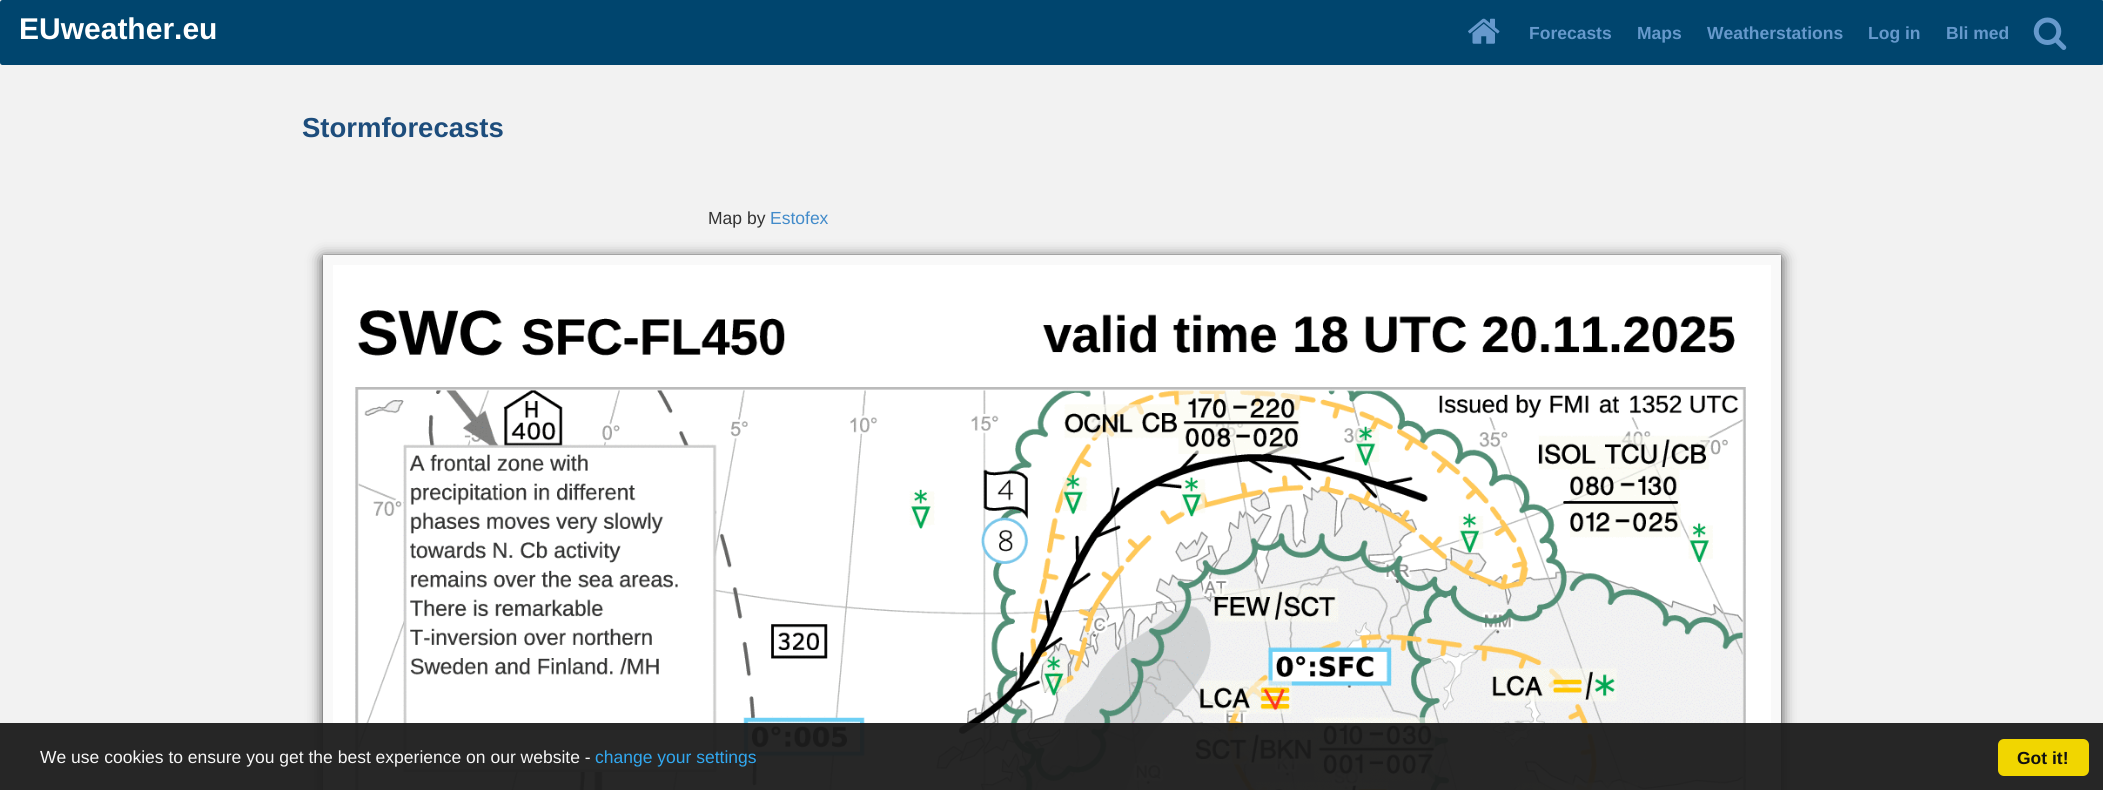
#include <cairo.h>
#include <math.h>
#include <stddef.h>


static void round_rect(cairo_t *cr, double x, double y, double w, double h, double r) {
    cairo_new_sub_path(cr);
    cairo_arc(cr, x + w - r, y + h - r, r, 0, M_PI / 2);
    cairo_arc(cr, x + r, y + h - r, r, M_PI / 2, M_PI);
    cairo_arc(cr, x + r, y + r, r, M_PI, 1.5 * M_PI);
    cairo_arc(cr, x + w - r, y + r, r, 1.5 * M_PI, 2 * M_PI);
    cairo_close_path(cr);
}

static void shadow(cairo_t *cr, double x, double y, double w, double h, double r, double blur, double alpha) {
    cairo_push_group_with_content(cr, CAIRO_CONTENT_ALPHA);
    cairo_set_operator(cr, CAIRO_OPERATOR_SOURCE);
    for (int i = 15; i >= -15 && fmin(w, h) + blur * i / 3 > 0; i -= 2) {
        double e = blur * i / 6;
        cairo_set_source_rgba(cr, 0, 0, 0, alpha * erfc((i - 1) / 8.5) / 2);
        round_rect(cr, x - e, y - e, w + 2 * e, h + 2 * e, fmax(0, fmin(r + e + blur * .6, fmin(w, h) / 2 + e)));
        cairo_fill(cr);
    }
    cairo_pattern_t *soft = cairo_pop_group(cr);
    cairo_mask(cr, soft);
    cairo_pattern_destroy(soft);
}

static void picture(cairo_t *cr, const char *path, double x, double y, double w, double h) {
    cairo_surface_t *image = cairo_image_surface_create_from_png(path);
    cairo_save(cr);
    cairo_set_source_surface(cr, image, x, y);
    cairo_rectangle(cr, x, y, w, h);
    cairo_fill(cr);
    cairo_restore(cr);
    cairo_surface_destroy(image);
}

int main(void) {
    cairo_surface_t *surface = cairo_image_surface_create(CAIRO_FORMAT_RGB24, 2103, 790);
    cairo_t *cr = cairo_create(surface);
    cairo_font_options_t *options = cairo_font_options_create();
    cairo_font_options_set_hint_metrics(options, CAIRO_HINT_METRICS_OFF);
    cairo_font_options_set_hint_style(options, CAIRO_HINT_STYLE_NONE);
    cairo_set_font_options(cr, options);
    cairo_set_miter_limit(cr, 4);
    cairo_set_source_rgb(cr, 0.949, 0.949, 0.949);
    cairo_paint(cr);
    cairo_set_source_rgb(cr, 0, 0.271, 0.431);
    round_rect(cr, 0, 0, 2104, 65, 2.5);
    cairo_fill(cr);
    cairo_select_font_face(cr, "Liberation Sans", CAIRO_FONT_SLANT_NORMAL, CAIRO_FONT_WEIGHT_BOLD);
    cairo_set_font_size(cr, 30);
    cairo_set_source_rgb(cr, 1, 1, 1);
    cairo_move_to(cr, 19, 39);
    cairo_show_text(cr, "EUweather.eu");
    picture(cr, "img1.png", 1468, 18, 32, 26);
    cairo_set_font_size(cr, 17.5);
    cairo_set_source_rgb(cr, 0.4, 0.6, 0.8);
    cairo_move_to(cr, 1529, 39);
    cairo_show_text(cr, "Forecasts");
    cairo_move_to(cr, 1637, 39);
    cairo_show_text(cr, "Maps");
    cairo_move_to(cr, 1707, 39);
    cairo_show_text(cr, "Weatherstations");
    cairo_move_to(cr, 1868, 39);
    cairo_show_text(cr, "Log in");
    cairo_move_to(cr, 1946, 39);
    cairo_show_text(cr, "Bli med");
    picture(cr, "img2.png", 2033, 17, 34, 33);
    cairo_set_font_size(cr, 27.5);
    cairo_set_source_rgb(cr, 0.114, 0.302, 0.486);
    cairo_move_to(cr, 302, 137);
    cairo_show_text(cr, "Stormforecasts");
    cairo_select_font_face(cr, "Liberation Sans", CAIRO_FONT_SLANT_NORMAL, CAIRO_FONT_WEIGHT_NORMAL);
    cairo_set_font_size(cr, 17.5);
    cairo_set_source_rgb(cr, 0.2, 0.2, 0.2);
    cairo_move_to(cr, 708, 224);
    cairo_show_text(cr, "Map by");
    cairo_set_source_rgb(cr, 0.259, 0.545, 0.792);
    cairo_move_to(cr, 770, 224);
    cairo_show_text(cr, "Estofex");
    cairo_set_source_rgb(cr, 0.467, 0.467, 0.467);
    shadow(cr, 323, 255, 1458, 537, 0, 0.5, 1);
    cairo_set_source_rgb(cr, 0.267, 0.267, 0.267);
    shadow(cr, 323, 258, 1458, 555, 0, 7.5, 1);
    cairo_set_source_rgb(cr, 0.976, 0.976, 0.976);
    cairo_rectangle(cr, 323, 255, 1458, 535);
    cairo_fill(cr);
    picture(cr, "img3.png", 333, 265, 1438, 525);
    cairo_set_source_rgba(cr, 0.114, 0.114, 0.114, 0.95);
    cairo_rectangle(cr, 0, 723, 2103, 67);
    cairo_fill(cr);
    cairo_set_source_rgb(cr, 0.961, 0.961, 0.961);
    cairo_move_to(cr, 40, 763);
    cairo_show_text(cr, "We use cookies to ensure you get the best experience on our website -");
    cairo_set_source_rgb(cr, 0.192, 0.659, 0.941);
    cairo_move_to(cr, 595, 763);
    cairo_show_text(cr, "change your settings");
    cairo_set_source_rgb(cr, 0.945, 0.839, 0);
    round_rect(cr, 1998, 739, 91, 37, 6);
    cairo_fill(cr);
    cairo_select_font_face(cr, "Liberation Sans", CAIRO_FONT_SLANT_NORMAL, CAIRO_FONT_WEIGHT_BOLD);
    cairo_set_source_rgb(cr, 0.067, 0.067, 0.067);
    cairo_move_to(cr, 2017, 764);
    cairo_show_text(cr, "Got it!");
    cairo_surface_write_to_png(surface, "page.png");
    cairo_font_options_destroy(options);
    cairo_destroy(cr);
    cairo_surface_destroy(surface);
    return 0;
}
